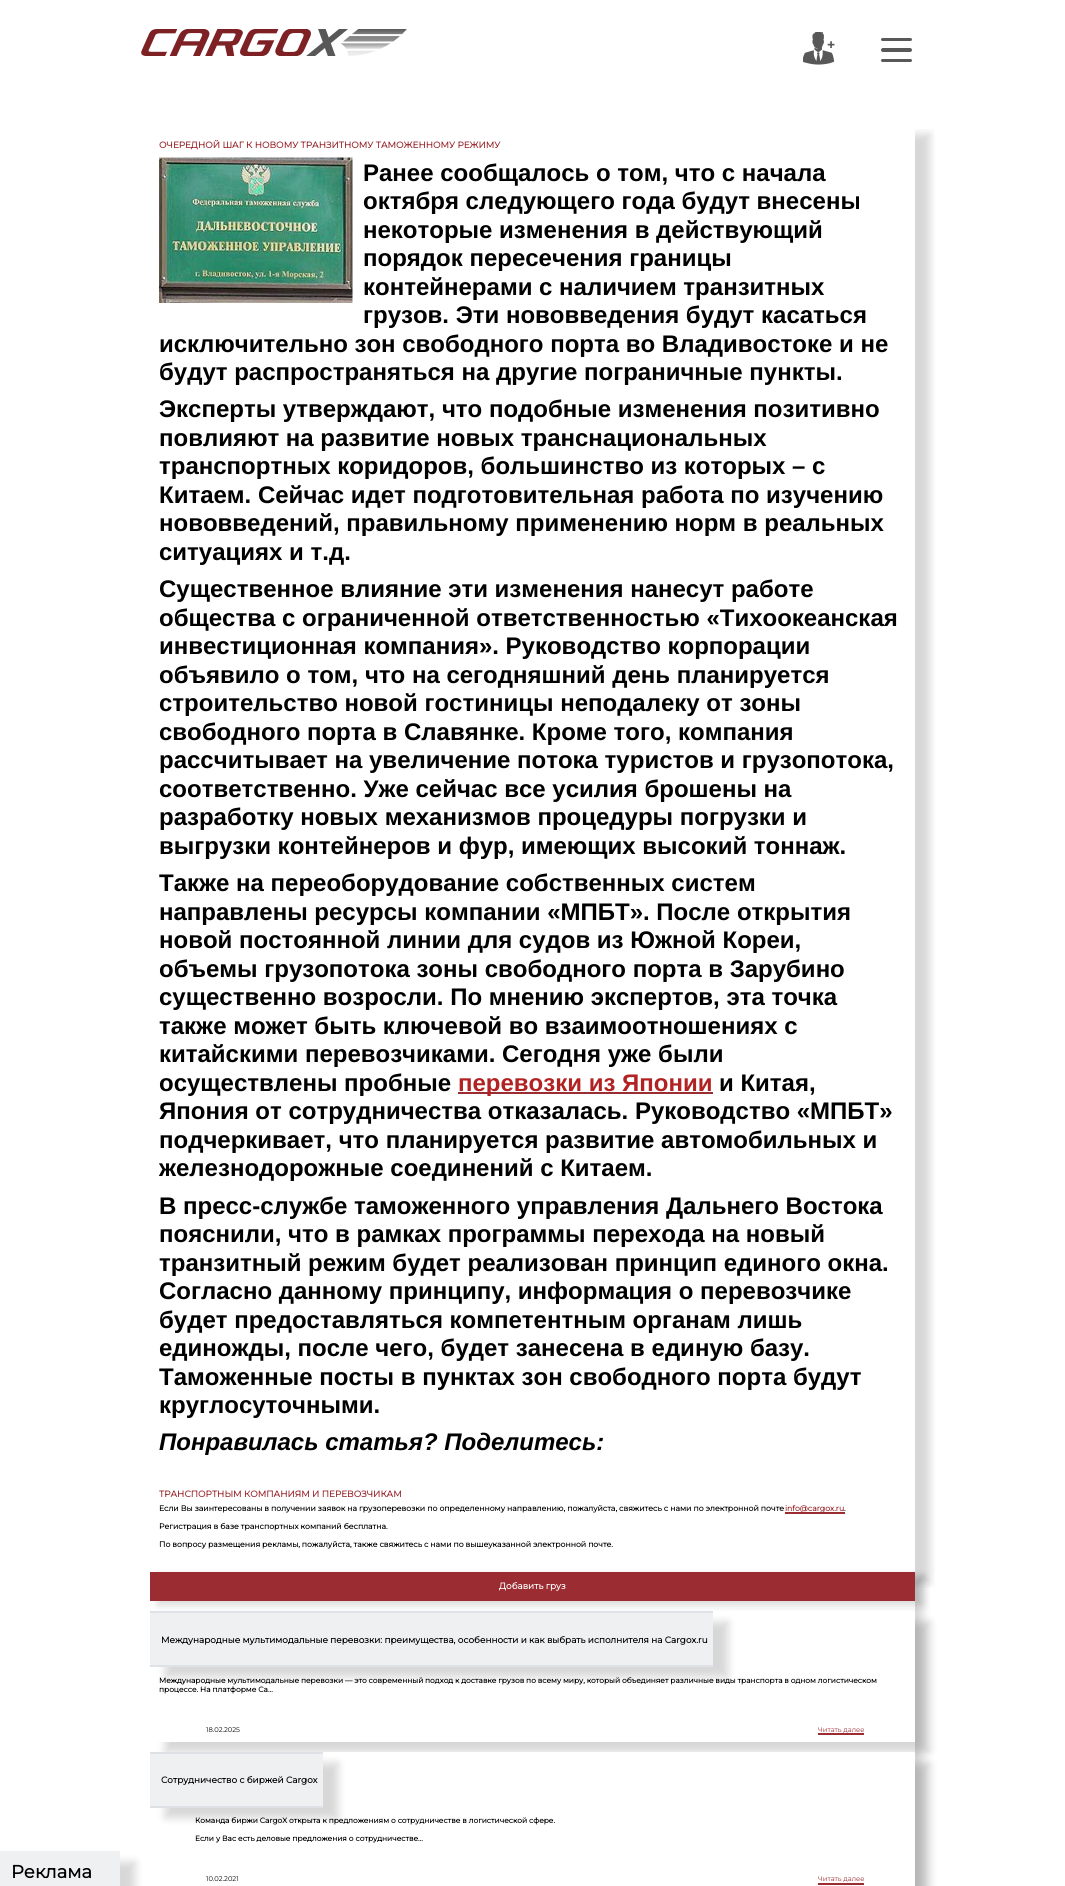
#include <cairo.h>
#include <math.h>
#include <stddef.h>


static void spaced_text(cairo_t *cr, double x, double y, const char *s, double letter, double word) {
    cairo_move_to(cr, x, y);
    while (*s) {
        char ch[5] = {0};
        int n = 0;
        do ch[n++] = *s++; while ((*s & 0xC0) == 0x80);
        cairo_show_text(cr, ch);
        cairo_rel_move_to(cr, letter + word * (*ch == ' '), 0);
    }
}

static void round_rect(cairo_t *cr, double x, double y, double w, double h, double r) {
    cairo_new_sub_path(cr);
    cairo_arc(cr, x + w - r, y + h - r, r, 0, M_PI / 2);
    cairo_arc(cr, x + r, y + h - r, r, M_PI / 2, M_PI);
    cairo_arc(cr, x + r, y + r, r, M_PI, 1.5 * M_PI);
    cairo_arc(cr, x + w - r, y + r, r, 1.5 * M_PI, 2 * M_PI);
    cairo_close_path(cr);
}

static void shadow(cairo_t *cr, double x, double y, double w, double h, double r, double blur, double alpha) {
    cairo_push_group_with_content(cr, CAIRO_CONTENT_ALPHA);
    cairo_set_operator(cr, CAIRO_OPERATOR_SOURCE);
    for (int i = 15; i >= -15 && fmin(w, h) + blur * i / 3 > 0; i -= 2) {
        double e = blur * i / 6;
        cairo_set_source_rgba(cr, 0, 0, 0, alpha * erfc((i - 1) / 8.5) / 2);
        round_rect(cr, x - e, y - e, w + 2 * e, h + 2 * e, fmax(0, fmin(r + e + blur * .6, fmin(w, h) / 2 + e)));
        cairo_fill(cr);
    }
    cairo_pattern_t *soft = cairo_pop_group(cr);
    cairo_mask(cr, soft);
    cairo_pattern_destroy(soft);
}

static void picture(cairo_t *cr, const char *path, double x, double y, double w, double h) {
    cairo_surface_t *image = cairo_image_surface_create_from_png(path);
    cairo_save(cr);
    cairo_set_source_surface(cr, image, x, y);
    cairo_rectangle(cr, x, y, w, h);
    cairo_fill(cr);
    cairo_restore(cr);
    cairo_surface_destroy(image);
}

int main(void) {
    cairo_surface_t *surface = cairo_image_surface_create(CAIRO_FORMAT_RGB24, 1065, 1886);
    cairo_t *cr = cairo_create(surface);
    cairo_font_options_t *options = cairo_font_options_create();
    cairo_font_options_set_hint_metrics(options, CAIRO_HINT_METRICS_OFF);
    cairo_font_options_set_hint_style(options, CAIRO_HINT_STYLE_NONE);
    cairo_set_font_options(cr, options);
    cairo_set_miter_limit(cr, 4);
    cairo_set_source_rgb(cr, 1, 1, 1);
    cairo_paint(cr);
    picture(cr, "img1.png", 141, 29, 266, 27);
    picture(cr, "img2.png", 803, 32, 32, 33);
    cairo_set_source_rgb(cr, 0.345, 0.345, 0.345);
    round_rect(cr, 881, 38, 31, 3, 1.5);
    cairo_fill(cr);
    round_rect(cr, 881, 48, 31, 4, 2);
    cairo_fill(cr);
    round_rect(cr, 881, 59, 31, 3, 1.5);
    cairo_fill(cr);
    cairo_set_source_rgb(cr, 0, 0, 0);
    shadow(cr, 15, 1862, 120, 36, 0, 4.5, 0.16);
    cairo_set_source_rgb(cr, 0.933, 0.941, 0.949);
    cairo_rectangle(cr, 0, 1851, 120, 35);
    cairo_fill(cr);
    cairo_select_font_face(cr, "Montserrat", CAIRO_FONT_SLANT_NORMAL, CAIRO_FONT_WEIGHT_BOLD);
    cairo_set_font_size(cr, 18);
    cairo_set_source_rgb(cr, 0, 0, 0);
    cairo_move_to(cr, 11, 1878);
    cairo_show_text(cr, "Реклама");
    cairo_save(cr);
    cairo_rectangle(cr, 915, 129, 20, 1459);
    cairo_clip(cr);
    cairo_set_source_rgb(cr, 0, 0, 0);
    shadow(cr, 165, 134, 765, 1449, 0, 4.5, 0.16);
    cairo_restore(cr);
    cairo_set_font_size(cr, 8.87);
    cairo_set_source_rgb(cr, 0.608, 0.173, 0.192);
    cairo_move_to(cr, 159, 148);
    cairo_show_text(cr, "ОЧЕРЕДНОЙ ШАГ К НОВОМУ ТРАНЗИТНОМУ ТАМОЖЕННОМУ РЕЖИМУ");
    picture(cr, "img3.png", 159, 157, 194, 146);
    cairo_select_font_face(cr, "Liberation Sans", CAIRO_FONT_SLANT_NORMAL, CAIRO_FONT_WEIGHT_BOLD);
    cairo_set_font_size(cr, 24);
    cairo_set_source_rgb(cr, 0, 0, 0);
    cairo_move_to(cr, 363, 181);
    cairo_show_text(cr, "Ранее сообщалось о том, что с начала");
    cairo_move_to(cr, 363, 209);
    cairo_show_text(cr, "октября следующего года будут внесены");
    cairo_move_to(cr, 363, 238);
    cairo_show_text(cr, "некоторые изменения в действующий");
    cairo_move_to(cr, 363, 266);
    cairo_show_text(cr, "порядок пересечения границы");
    cairo_move_to(cr, 363, 295);
    cairo_show_text(cr, "контейнерами с наличием транзитных");
    cairo_move_to(cr, 363, 323);
    cairo_show_text(cr, "грузов. Эти нововведения будут касаться");
    cairo_move_to(cr, 159, 352);
    cairo_show_text(cr, "исключительно зон свободного порта во Владивостоке и не");
    cairo_move_to(cr, 159, 380);
    cairo_show_text(cr, "будут распространяться на другие пограничные пункты.");
    cairo_move_to(cr, 159, 417);
    cairo_show_text(cr, "Эксперты утверждают, что подобные изменения позитивно");
    cairo_move_to(cr, 159, 446);
    cairo_show_text(cr, "повлияют на развитие новых транснациональных");
    cairo_move_to(cr, 159, 474);
    cairo_show_text(cr, "транспортных коридоров, большинство из которых – с");
    cairo_move_to(cr, 159, 503);
    cairo_show_text(cr, "Китаем. Сейчас идет подготовительная работа по изучению");
    cairo_move_to(cr, 159, 531);
    cairo_show_text(cr, "нововведений, правильному применению норм в реальных");
    cairo_move_to(cr, 159, 560);
    cairo_show_text(cr, "ситуациях и т.д.");
    cairo_move_to(cr, 159, 597);
    cairo_show_text(cr, "Существенное влияние эти изменения нанесут работе");
    cairo_move_to(cr, 159, 626);
    cairo_show_text(cr, "общества с ограниченной ответственностью «Тихоокеанская");
    cairo_move_to(cr, 159, 654);
    cairo_show_text(cr, "инвестиционная компания». Руководство корпорации");
    cairo_move_to(cr, 159, 683);
    cairo_show_text(cr, "объявило о том, что на сегодняшний день планируется");
    cairo_move_to(cr, 159, 711);
    cairo_show_text(cr, "строительство новой гостиницы неподалеку от зоны");
    cairo_move_to(cr, 159, 740);
    cairo_show_text(cr, "свободного порта в Славянке. Кроме того, компания");
    cairo_move_to(cr, 159, 768);
    cairo_show_text(cr, "рассчитывает на увеличение потока туристов и грузопотока,");
    cairo_move_to(cr, 159, 797);
    cairo_show_text(cr, "соответственно. Уже сейчас все усилия брошены на");
    cairo_move_to(cr, 159, 825);
    cairo_show_text(cr, "разработку новых механизмов процедуры погрузки и");
    cairo_move_to(cr, 159, 854);
    cairo_show_text(cr, "выгрузки контейнеров и фур, имеющих высокий тоннаж.");
    cairo_move_to(cr, 159, 891);
    cairo_show_text(cr, "Также на переоборудование собственных систем");
    cairo_move_to(cr, 159, 920);
    cairo_show_text(cr, "направлены ресурсы компании «МПБТ». После открытия");
    cairo_move_to(cr, 159, 948);
    cairo_show_text(cr, "новой постоянной линии для судов из Южной Кореи,");
    cairo_move_to(cr, 159, 977);
    cairo_show_text(cr, "объемы грузопотока зоны свободного порта в Зарубино");
    cairo_move_to(cr, 159, 1005);
    cairo_show_text(cr, "существенно возросли. По мнению экспертов, эта точка");
    cairo_move_to(cr, 159, 1034);
    cairo_show_text(cr, "также может быть ключевой во взаимоотношениях с");
    cairo_move_to(cr, 159, 1062);
    cairo_show_text(cr, "китайскими перевозчиками. Сегодня уже были");
    cairo_move_to(cr, 159, 1091);
    cairo_show_text(cr, "осуществлены пробные");
    cairo_set_source_rgb(cr, 0.608, 0.173, 0.192);
    cairo_rectangle(cr, 458, 1092, 255, 2);
    cairo_fill(cr);
    cairo_set_source_rgb(cr, 0.698, 0.133, 0.133);
    cairo_move_to(cr, 458, 1091);
    cairo_show_text(cr, "перевозки из Японии");
    cairo_set_source_rgb(cr, 0, 0, 0);
    cairo_move_to(cr, 719, 1091);
    cairo_show_text(cr, "и Китая,");
    cairo_move_to(cr, 159, 1119);
    cairo_show_text(cr, "Япония от сотрудничества отказалась. Руководство «МПБТ»");
    cairo_move_to(cr, 159, 1148);
    cairo_show_text(cr, "подчеркивает, что планируется развитие автомобильных и");
    cairo_move_to(cr, 159, 1176);
    cairo_show_text(cr, "железнодорожные соединений с Китаем.");
    cairo_move_to(cr, 159, 1214);
    cairo_show_text(cr, "В пресс-службе таможенного управления Дальнего Востока");
    cairo_move_to(cr, 159, 1242);
    cairo_show_text(cr, "пояснили, что в рамках программы перехода на новый");
    cairo_move_to(cr, 159, 1271);
    cairo_show_text(cr, "транзитный режим будет реализован принцип единого окна.");
    cairo_move_to(cr, 159, 1299);
    cairo_show_text(cr, "Согласно данному принципу, информация о перевозчике");
    cairo_move_to(cr, 159, 1328);
    cairo_show_text(cr, "будет предоставляться компетентным органам лишь");
    cairo_move_to(cr, 159, 1356);
    cairo_show_text(cr, "единожды, после чего, будет занесена в единую базу.");
    cairo_move_to(cr, 159, 1385);
    cairo_show_text(cr, "Таможенные посты в пунктах зон свободного порта будут");
    cairo_move_to(cr, 159, 1413);
    cairo_show_text(cr, "круглосуточными.");
    cairo_select_font_face(cr, "Liberation Sans", CAIRO_FONT_SLANT_ITALIC, CAIRO_FONT_WEIGHT_BOLD);
    cairo_move_to(cr, 159, 1450);
    cairo_show_text(cr, "Понравилась статья? Поделитесь:");
    cairo_select_font_face(cr, "Montserrat", CAIRO_FONT_SLANT_NORMAL, CAIRO_FONT_WEIGHT_BOLD);
    cairo_set_font_size(cr, 8.87);
    cairo_set_source_rgb(cr, 0.608, 0.173, 0.192);
    cairo_move_to(cr, 159, 1497);
    cairo_show_text(cr, "ТРАНСПОРТНЫМ КОМПАНИЯМ И ПЕРЕВОЗЧИКАМ");
    cairo_set_font_size(cr, 7.75);
    cairo_set_source_rgb(cr, 0, 0, 0);
    cairo_move_to(cr, 159, 1511);
    cairo_show_text(cr, "Если Вы заинтересованы в получении заявок на грузоперевозки по определенному направлению, пожалуйста, свяжитесь с нами по электронной почте");
    cairo_set_source_rgb(cr, 0.608, 0.173, 0.192);
    cairo_rectangle(cr, 785, 1512, 60, 2);
    cairo_fill(cr);
    cairo_move_to(cr, 785, 1511);
    cairo_show_text(cr, "info@cargox.ru");
    cairo_set_source_rgb(cr, 0, 0, 0);
    cairo_move_to(cr, 844, 1511);
    cairo_show_text(cr, ".");
    cairo_move_to(cr, 159, 1529);
    cairo_show_text(cr, "Регистрация в базе транспортных компаний бесплатна.");
    spaced_text(cr, 159, 1547, "По вопросу размещения рекламы, пожалуйста, также свяжитесь с нами по вышеуказанной электронной почте.", 0, -0.1);
    cairo_set_source_rgb(cr, 0, 0, 0);
    shadow(cr, 158, 1577, 765, 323, 0, 4.5, 0.16);
    cairo_set_source_rgb(cr, 1, 1, 1);
    cairo_rectangle(cr, 151, 1601, 764, 151);
    cairo_fill(cr);
    cairo_set_source_rgb(cr, 0, 0, 0);
    shadow(cr, 158, 1577, 765, 28, 0, 4.5, 0.16);
    cairo_set_source_rgb(cr, 0.608, 0.173, 0.192);
    cairo_rectangle(cr, 150, 1572, 765, 29);
    cairo_fill(cr);
    cairo_set_font_size(cr, 8.87);
    cairo_set_source_rgb(cr, 1, 1, 1);
    cairo_move_to(cr, 499, 1589);
    cairo_show_text(cr, "Добавить груз");
    cairo_set_source_rgb(cr, 0, 0, 0);
    shadow(cr, 165, 1622, 765, 130, 0, 4.5, 0.16);
    cairo_set_source_rgb(cr, 1, 1, 1);
    cairo_rectangle(cr, 158, 1611, 757, 131);
    cairo_fill(cr);
    cairo_set_source_rgb(cr, 0, 0, 0);
    shadow(cr, 165, 1622, 563, 55, 0, 4.5, 0.16);
    cairo_set_source_rgb(cr, 0.933, 0.941, 0.949);
    cairo_rectangle(cr, 150, 1613, 563, 52);
    cairo_fill(cr);
    cairo_set_source_rgb(cr, 0.871, 0.886, 0.902);
    cairo_rectangle(cr, 150, 1611, 563, 2);
    cairo_fill(cr);
    cairo_rectangle(cr, 150, 1665, 563, 2);
    cairo_fill(cr);
    cairo_set_source_rgb(cr, 0, 0, 0);
    cairo_move_to(cr, 161, 1643);
    cairo_show_text(cr, "Международные мультимодальные перевозки: преимущества, особенности и как выбрать исполнителя на Cargox.ru");
    cairo_set_font_size(cr, 7.45);
    spaced_text(cr, 159, 1683, "Международные мультимодальные перевозки — это современный подход к доставке грузов по всему миру, который объединяет различные виды транспорта в одном логистическом", 0, -0.1);
    cairo_move_to(cr, 159, 1692);
    cairo_show_text(cr, "процессе. На платформе Ca…");
    cairo_select_font_face(cr, "Montserrat Thin", CAIRO_FONT_SLANT_NORMAL, CAIRO_FONT_WEIGHT_NORMAL);
    cairo_set_font_size(cr, 6.75);
    cairo_move_to(cr, 206, 1732);
    cairo_show_text(cr, "18.02.2025");
    cairo_set_source_rgb(cr, 0.608, 0.173, 0.192);
    cairo_move_to(cr, 818, 1732);
    cairo_show_text(cr, "Читать далее");
    cairo_rectangle(cr, 818, 1733, 46, 2);
    cairo_fill(cr);
    cairo_set_source_rgb(cr, 0, 0, 0);
    shadow(cr, 165, 1763, 765, 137, 0, 4.5, 0.16);
    cairo_set_source_rgb(cr, 1, 1, 1);
    cairo_rectangle(cr, 151, 1752, 764, 134);
    cairo_fill(cr);
    cairo_set_source_rgb(cr, 0, 0, 0);
    shadow(cr, 165, 1763, 173, 55, 0, 4.5, 0.16);
    cairo_set_source_rgb(cr, 0.933, 0.941, 0.949);
    cairo_rectangle(cr, 150, 1754, 173, 52);
    cairo_fill(cr);
    cairo_set_source_rgb(cr, 0.871, 0.886, 0.902);
    cairo_rectangle(cr, 150, 1752, 173, 2);
    cairo_fill(cr);
    cairo_rectangle(cr, 150, 1806, 173, 2);
    cairo_fill(cr);
    cairo_select_font_face(cr, "Montserrat", CAIRO_FONT_SLANT_NORMAL, CAIRO_FONT_WEIGHT_BOLD);
    cairo_set_font_size(cr, 8.87);
    cairo_set_source_rgb(cr, 0, 0, 0);
    cairo_move_to(cr, 161, 1783);
    cairo_show_text(cr, "Сотрудничество с биржей Cargox");
    cairo_set_font_size(cr, 7.45);
    cairo_move_to(cr, 195, 1823);
    cairo_show_text(cr, "Команда биржи CargoX открыта к предложениям о сотрудничестве в логистической сфере.");
    cairo_move_to(cr, 195, 1841);
    cairo_show_text(cr, "Если у Вас есть деловые предложения о сотрудничестве…");
    cairo_select_font_face(cr, "Montserrat Thin", CAIRO_FONT_SLANT_NORMAL, CAIRO_FONT_WEIGHT_NORMAL);
    cairo_set_font_size(cr, 6.75);
    cairo_move_to(cr, 206, 1881);
    cairo_show_text(cr, "10.02.2021");
    cairo_set_source_rgb(cr, 0.608, 0.173, 0.192);
    cairo_move_to(cr, 818, 1881);
    cairo_show_text(cr, "Читать далее");
    cairo_rectangle(cr, 818, 1883, 46, 2);
    cairo_fill(cr);
    cairo_surface_write_to_png(surface, "page.png");
    cairo_font_options_destroy(options);
    cairo_destroy(cr);
    cairo_surface_destroy(surface);
    return 0;
}
